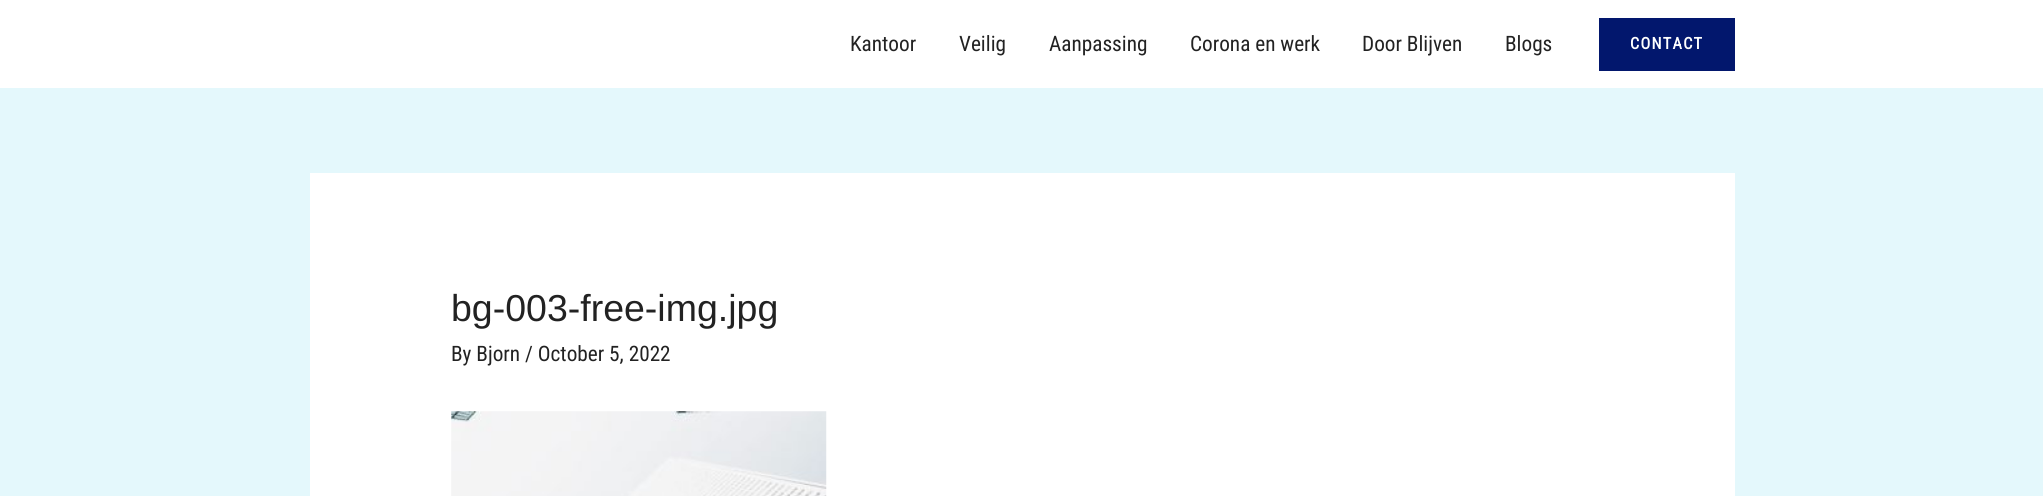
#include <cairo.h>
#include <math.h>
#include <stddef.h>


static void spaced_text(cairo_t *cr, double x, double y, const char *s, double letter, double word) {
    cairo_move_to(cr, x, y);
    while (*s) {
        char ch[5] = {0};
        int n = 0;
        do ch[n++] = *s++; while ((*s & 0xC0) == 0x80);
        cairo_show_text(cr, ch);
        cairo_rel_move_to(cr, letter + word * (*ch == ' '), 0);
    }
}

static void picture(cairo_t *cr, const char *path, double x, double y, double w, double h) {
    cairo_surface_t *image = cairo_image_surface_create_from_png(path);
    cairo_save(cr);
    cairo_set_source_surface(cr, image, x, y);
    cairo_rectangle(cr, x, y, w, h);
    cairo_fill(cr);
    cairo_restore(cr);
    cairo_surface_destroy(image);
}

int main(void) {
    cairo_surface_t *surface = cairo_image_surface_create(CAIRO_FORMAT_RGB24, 2043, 496);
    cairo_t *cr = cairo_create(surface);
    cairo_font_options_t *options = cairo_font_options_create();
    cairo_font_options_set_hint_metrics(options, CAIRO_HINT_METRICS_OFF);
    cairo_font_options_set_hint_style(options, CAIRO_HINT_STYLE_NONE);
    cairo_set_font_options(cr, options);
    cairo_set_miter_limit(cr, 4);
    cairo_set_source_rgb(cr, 0.894, 0.969, 0.988);
    cairo_paint(cr);
    cairo_set_source_rgb(cr, 1, 1, 1);
    cairo_rectangle(cr, 0, 0, 2043, 88);
    cairo_fill(cr);
    cairo_select_font_face(cr, "Roboto Condensed", CAIRO_FONT_SLANT_NORMAL, CAIRO_FONT_WEIGHT_NORMAL);
    cairo_set_font_size(cr, 21.25);
    cairo_set_source_rgb(cr, 0.133, 0.133, 0.133);
    cairo_move_to(cr, 850, 51);
    cairo_show_text(cr, "Kantoor");
    cairo_move_to(cr, 959, 51);
    cairo_show_text(cr, "Veilig");
    cairo_move_to(cr, 1049, 51);
    cairo_show_text(cr, "Aanpassing");
    cairo_move_to(cr, 1190, 51);
    cairo_show_text(cr, "Corona en werk");
    cairo_move_to(cr, 1362, 51);
    cairo_show_text(cr, "Door Blijven");
    cairo_move_to(cr, 1505, 51);
    cairo_show_text(cr, "Blogs");
    cairo_set_source_rgb(cr, 0.008, 0.09, 0.427);
    cairo_rectangle(cr, 1599, 18, 136, 53);
    cairo_fill(cr);
    cairo_select_font_face(cr, "Roboto Condensed", CAIRO_FONT_SLANT_NORMAL, CAIRO_FONT_WEIGHT_BOLD);
    cairo_set_font_size(cr, 16.25);
    cairo_set_source_rgb(cr, 1, 1, 1);
    spaced_text(cr, 1630, 49, "CONTACT", 1.25, 0);
    cairo_rectangle(cr, 310, 173, 1425, 323);
    cairo_fill(cr);
    cairo_select_font_face(cr, "Liberation Sans", CAIRO_FONT_SLANT_NORMAL, CAIRO_FONT_WEIGHT_NORMAL);
    cairo_set_font_size(cr, 37.5);
    cairo_set_source_rgb(cr, 0.133, 0.133, 0.133);
    cairo_move_to(cr, 451, 321);
    cairo_show_text(cr, "bg-003-free-img.jpg");
    cairo_select_font_face(cr, "Roboto Condensed", CAIRO_FONT_SLANT_NORMAL, CAIRO_FONT_WEIGHT_NORMAL);
    cairo_set_font_size(cr, 21.25);
    cairo_move_to(cr, 451, 361);
    cairo_show_text(cr, "By Bjorn / October 5, 2022");
    picture(cr, "img1.png", 451, 411, 376, 85);
    cairo_surface_write_to_png(surface, "page.png");
    cairo_font_options_destroy(options);
    cairo_destroy(cr);
    cairo_surface_destroy(surface);
    return 0;
}
